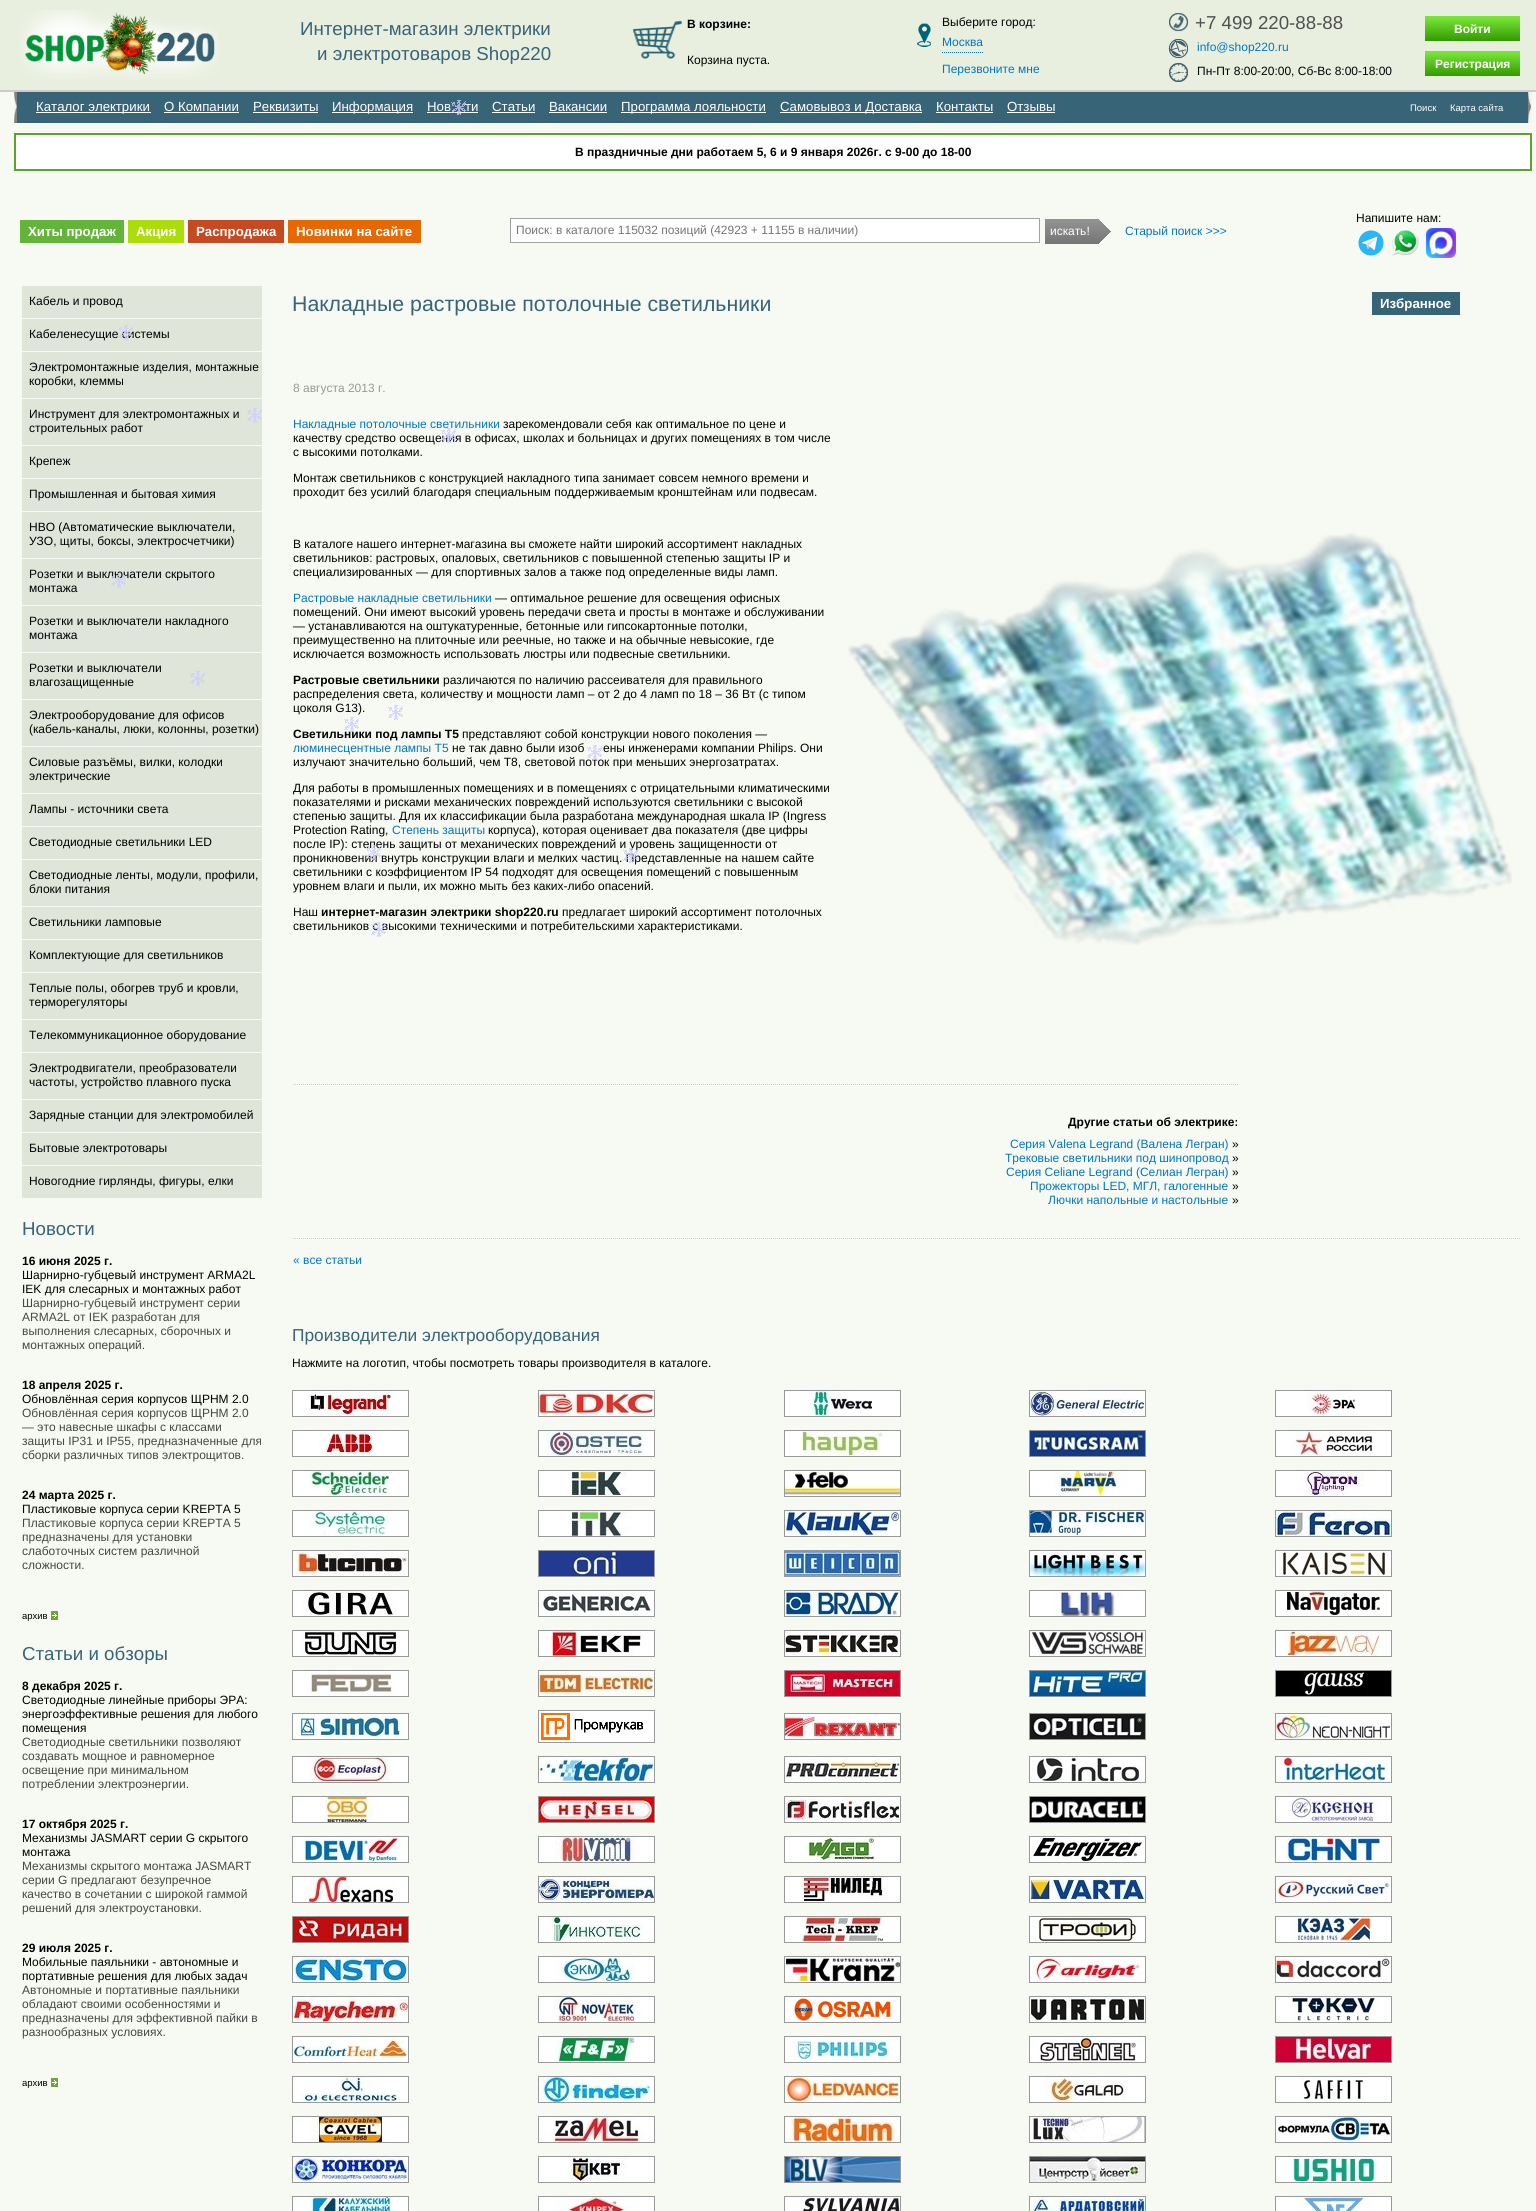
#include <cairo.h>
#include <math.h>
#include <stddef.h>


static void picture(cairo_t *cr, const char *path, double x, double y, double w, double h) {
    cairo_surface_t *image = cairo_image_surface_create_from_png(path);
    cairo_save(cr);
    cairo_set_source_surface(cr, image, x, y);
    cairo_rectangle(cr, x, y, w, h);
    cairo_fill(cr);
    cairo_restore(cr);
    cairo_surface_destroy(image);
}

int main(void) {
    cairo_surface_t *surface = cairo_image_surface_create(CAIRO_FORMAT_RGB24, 1536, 2211);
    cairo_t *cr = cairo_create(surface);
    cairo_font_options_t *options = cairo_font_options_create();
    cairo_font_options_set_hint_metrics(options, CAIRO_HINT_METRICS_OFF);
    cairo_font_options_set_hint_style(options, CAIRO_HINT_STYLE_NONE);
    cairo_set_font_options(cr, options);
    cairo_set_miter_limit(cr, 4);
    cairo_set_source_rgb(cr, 0.965, 0.98, 0.949);
    cairo_paint(cr);
    cairo_set_source_rgb(cr, 0.914, 0.937, 0.875);
    cairo_rectangle(cr, 0, 0, 1536, 90);
    cairo_fill(cr);
    cairo_set_source_rgb(cr, 0.8, 0.8, 0.8);
    cairo_rectangle(cr, 0, 90, 1536, 2);
    cairo_fill(cr);
    picture(cr, "img1.png", 20, 10, 199, 69);
    cairo_select_font_face(cr, "Liberation Sans", CAIRO_FONT_SLANT_NORMAL, CAIRO_FONT_WEIGHT_NORMAL);
    cairo_set_font_size(cr, 18.7);
    cairo_set_source_rgb(cr, 0.216, 0.392, 0.467);
    cairo_move_to(cr, 300, 35);
    cairo_show_text(cr, "Интернет-магазин электрики");
    cairo_move_to(cr, 317, 60);
    cairo_show_text(cr, "и электротоваров Shop220");
    picture(cr, "img2.png", 633, 21, 49, 38);
    cairo_select_font_face(cr, "Liberation Sans", CAIRO_FONT_SLANT_NORMAL, CAIRO_FONT_WEIGHT_BOLD);
    cairo_set_font_size(cr, 12);
    cairo_set_source_rgb(cr, 0, 0, 0);
    cairo_move_to(cr, 687, 28);
    cairo_show_text(cr, "В корзине:");
    cairo_select_font_face(cr, "Liberation Sans", CAIRO_FONT_SLANT_NORMAL, CAIRO_FONT_WEIGHT_NORMAL);
    cairo_move_to(cr, 687, 64);
    cairo_show_text(cr, "Корзина пуста.");
    picture(cr, "img3.png", 917, 23, 14, 24);
    cairo_move_to(cr, 942, 26);
    cairo_show_text(cr, "Выберите город:");
    cairo_new_path(cr);
    cairo_move_to(cr, 942, 52.5);
    cairo_line_to(cr, 983, 52.5);
    cairo_set_source_rgb(cr, 0, 0.467, 0.765);
    cairo_set_line_width(cr, 1);
    cairo_set_dash(cr, (double[]){1, 1}, 2, 0);
    cairo_stroke(cr);
    cairo_move_to(cr, 942, 46);
    cairo_show_text(cr, "Москва");
    cairo_move_to(cr, 942, 73);
    cairo_show_text(cr, "Перезвоните мне");
    picture(cr, "img4.png", 1169, 13, 19, 19);
    cairo_set_font_size(cr, 18.7);
    cairo_set_source_rgb(cr, 0.314, 0.314, 0.314);
    cairo_move_to(cr, 1195, 29);
    cairo_show_text(cr, "+7 499 220-88-88");
    picture(cr, "img5.png", 1168, 39, 20, 19);
    cairo_set_font_size(cr, 12);
    cairo_set_source_rgb(cr, 0, 0.467, 0.765);
    cairo_move_to(cr, 1197, 51);
    cairo_show_text(cr, "info@shop220.ru");
    picture(cr, "img6.png", 1169, 63, 19, 19);
    cairo_set_source_rgb(cr, 0, 0, 0);
    cairo_move_to(cr, 1197, 75);
    cairo_show_text(cr, "Пн-Пт 8:00-20:00, Сб-Вс 8:00-18:00");
    picture(cr, "img7.png", 1425, 16, 95, 25);
    cairo_select_font_face(cr, "Liberation Sans", CAIRO_FONT_SLANT_NORMAL, CAIRO_FONT_WEIGHT_BOLD);
    cairo_set_source_rgb(cr, 1, 1, 1);
    cairo_move_to(cr, 1454, 33);
    cairo_show_text(cr, "Войти");
    picture(cr, "img7.png", 1425, 51, 95, 25);
    cairo_move_to(cr, 1435, 68);
    cairo_show_text(cr, "Регистрация");
    cairo_set_source_rgb(cr, 0.216, 0.392, 0.467);
    cairo_rectangle(cr, 17, 92, 1511, 31);
    cairo_fill(cr);
    cairo_select_font_face(cr, "Liberation Sans", CAIRO_FONT_SLANT_NORMAL, CAIRO_FONT_WEIGHT_NORMAL);
    cairo_set_font_size(cr, 13.25);
    cairo_set_source_rgb(cr, 1, 1, 1);
    cairo_move_to(cr, 465, 111);
    cairo_show_text(cr, "ти");
    cairo_rectangle(cr, 427, 112, 51, 1);
    cairo_fill(cr);
    picture(cr, "img8.png", 451, 100, 15, 15);
    picture(cr, "img9.png", 14, 92, 3, 31);
    cairo_rectangle(cr, 36, 112, 115, 1);
    cairo_fill(cr);
    cairo_move_to(cr, 36, 111);
    cairo_show_text(cr, "Каталог электрики");
    cairo_move_to(cr, 164, 111);
    cairo_show_text(cr, "О Компании");
    cairo_rectangle(cr, 164, 112, 75, 1);
    cairo_fill(cr);
    cairo_move_to(cr, 253, 111);
    cairo_show_text(cr, "Реквизиты");
    cairo_rectangle(cr, 253, 112, 65, 1);
    cairo_fill(cr);
    cairo_rectangle(cr, 332, 112, 81, 1);
    cairo_fill(cr);
    cairo_move_to(cr, 332, 111);
    cairo_show_text(cr, "Информация");
    cairo_move_to(cr, 427, 111);
    cairo_show_text(cr, "Нов");
    cairo_move_to(cr, 492, 111);
    cairo_show_text(cr, "Статьи");
    cairo_rectangle(cr, 492, 112, 43, 1);
    cairo_fill(cr);
    cairo_move_to(cr, 549, 111);
    cairo_show_text(cr, "Вакансии");
    cairo_rectangle(cr, 549, 112, 58, 1);
    cairo_fill(cr);
    cairo_rectangle(cr, 621, 112, 145, 1);
    cairo_fill(cr);
    cairo_move_to(cr, 621, 111);
    cairo_show_text(cr, "Программа лояльности");
    cairo_rectangle(cr, 780, 112, 142, 1);
    cairo_fill(cr);
    cairo_move_to(cr, 780, 111);
    cairo_show_text(cr, "Самовывоз и Доставка");
    cairo_move_to(cr, 936, 111);
    cairo_show_text(cr, "Контакты");
    cairo_rectangle(cr, 936, 112, 57, 1);
    cairo_fill(cr);
    cairo_move_to(cr, 1007, 111);
    cairo_show_text(cr, "Отзывы");
    cairo_rectangle(cr, 1007, 112, 48, 1);
    cairo_fill(cr);
    picture(cr, "img10.png", 1528, 92, 4, 31);
    cairo_set_font_size(cr, 9.5);
    cairo_move_to(cr, 1410, 111);
    cairo_show_text(cr, "Поиск");
    cairo_move_to(cr, 1450, 111);
    cairo_show_text(cr, "Карта сайта");
    cairo_rectangle(cr, 15, 134, 1516, 36);
    cairo_fill_preserve(cr);
    cairo_set_source_rgb(cr, 0.361, 0.639, 0.188);
    cairo_set_line_width(cr, 2);
    cairo_set_dash(cr, NULL, 0, 0);
    cairo_stroke(cr);
    cairo_select_font_face(cr, "Liberation Sans", CAIRO_FONT_SLANT_NORMAL, CAIRO_FONT_WEIGHT_BOLD);
    cairo_set_font_size(cr, 12);
    cairo_set_source_rgb(cr, 0, 0, 0);
    cairo_move_to(cr, 575, 156);
    cairo_show_text(cr, "В праздничные дни работаем 5, 6 и 9 января 2026г. с 9-00 до 18-00");
    cairo_select_font_face(cr, "Liberation Sans", CAIRO_FONT_SLANT_NORMAL, CAIRO_FONT_WEIGHT_NORMAL);
    cairo_move_to(cr, 1356, 222);
    cairo_show_text(cr, "Напишите нам:");
    picture(cr, "img11.png", 1358, 230, 26, 26);
    picture(cr, "img12.png", 1392, 228, 27, 28);
    picture(cr, "img13.png", 1426, 228, 30, 30);
    cairo_set_source_rgb(cr, 0.388, 0.71, 0.227);
    cairo_rectangle(cr, 20, 220, 104, 23);
    cairo_fill(cr);
    cairo_select_font_face(cr, "Liberation Sans", CAIRO_FONT_SLANT_NORMAL, CAIRO_FONT_WEIGHT_BOLD);
    cairo_set_font_size(cr, 13.25);
    cairo_set_source_rgb(cr, 1, 1, 1);
    cairo_move_to(cr, 28, 236);
    cairo_show_text(cr, "Хиты продаж");
    cairo_set_source_rgb(cr, 0.671, 0.871, 0.035);
    cairo_rectangle(cr, 128, 220, 56, 23);
    cairo_fill(cr);
    cairo_set_source_rgb(cr, 1, 1, 1);
    cairo_move_to(cr, 136, 236);
    cairo_show_text(cr, "Акция");
    cairo_set_source_rgb(cr, 0.773, 0.29, 0.129);
    cairo_rectangle(cr, 188, 220, 96, 23);
    cairo_fill(cr);
    cairo_set_source_rgb(cr, 1, 1, 1);
    cairo_move_to(cr, 196, 236);
    cairo_show_text(cr, "Распродажа");
    cairo_set_source_rgb(cr, 0.906, 0.404, 0);
    cairo_rectangle(cr, 288, 220, 133, 23);
    cairo_fill(cr);
    cairo_set_source_rgb(cr, 1, 1, 1);
    cairo_move_to(cr, 296, 236);
    cairo_show_text(cr, "Новинки на сайте");
    cairo_rectangle(cr, 510.5, 218.5, 529, 24);
    cairo_fill_preserve(cr);
    cairo_set_source_rgb(cr, 0.639, 0.639, 0.639);
    cairo_set_line_width(cr, 1);
    cairo_stroke(cr);
    cairo_select_font_face(cr, "Liberation Sans", CAIRO_FONT_SLANT_NORMAL, CAIRO_FONT_WEIGHT_NORMAL);
    cairo_set_font_size(cr, 12);
    cairo_set_source_rgb(cr, 0.459, 0.459, 0.459);
    cairo_move_to(cr, 516, 234);
    cairo_show_text(cr, "Поиск: в каталоге 115032 позиций (42923 + 11155 в наличии)");
    picture(cr, "img14.png", 1045, 219, 66, 25);
    cairo_set_source_rgb(cr, 1, 1, 1);
    cairo_move_to(cr, 1050, 235);
    cairo_show_text(cr, "искать!");
    cairo_set_source_rgb(cr, 0, 0.467, 0.765);
    cairo_move_to(cr, 1125, 235);
    cairo_show_text(cr, "Старый поиск >>>");
    cairo_set_source_rgb(cr, 0.878, 0.898, 0.855);
    cairo_rectangle(cr, 22, 286, 240, 32);
    cairo_fill(cr);
    cairo_set_source_rgb(cr, 0, 0, 0);
    cairo_move_to(cr, 29, 305);
    cairo_show_text(cr, "Кабель и провод");
    cairo_set_source_rgb(cr, 0.878, 0.898, 0.855);
    cairo_rectangle(cr, 22, 319, 240, 32);
    cairo_fill(cr);
    cairo_set_source_rgb(cr, 0, 0, 0);
    cairo_move_to(cr, 29, 338);
    cairo_show_text(cr, "Кабеленесущие системы");
    cairo_set_source_rgb(cr, 0.878, 0.898, 0.855);
    cairo_rectangle(cr, 22, 352, 240, 46);
    cairo_fill(cr);
    cairo_set_source_rgb(cr, 0, 0, 0);
    cairo_move_to(cr, 29, 371);
    cairo_show_text(cr, "Электромонтажные изделия, монтажные");
    cairo_move_to(cr, 29, 385);
    cairo_show_text(cr, "коробки, клеммы");
    cairo_set_source_rgb(cr, 0.878, 0.898, 0.855);
    cairo_rectangle(cr, 22, 399, 240, 46);
    cairo_fill(cr);
    cairo_set_source_rgb(cr, 0, 0, 0);
    cairo_move_to(cr, 29, 418);
    cairo_show_text(cr, "Инструмент для электромонтажных и");
    cairo_move_to(cr, 29, 432);
    cairo_show_text(cr, "строительных работ");
    cairo_set_source_rgb(cr, 0.878, 0.898, 0.855);
    cairo_rectangle(cr, 22, 446, 240, 32);
    cairo_fill(cr);
    cairo_set_source_rgb(cr, 0, 0, 0);
    cairo_move_to(cr, 29, 465);
    cairo_show_text(cr, "Крепеж");
    cairo_set_source_rgb(cr, 0.878, 0.898, 0.855);
    cairo_rectangle(cr, 22, 479, 240, 32);
    cairo_fill(cr);
    cairo_set_source_rgb(cr, 0, 0, 0);
    cairo_move_to(cr, 29, 498);
    cairo_show_text(cr, "Промышленная и бытовая химия");
    cairo_set_source_rgb(cr, 0.878, 0.898, 0.855);
    cairo_rectangle(cr, 22, 512, 240, 46);
    cairo_fill(cr);
    cairo_set_source_rgb(cr, 0, 0, 0);
    cairo_move_to(cr, 29, 531);
    cairo_show_text(cr, "НВО (Автоматические выключатели,");
    cairo_move_to(cr, 29, 545);
    cairo_show_text(cr, "УЗО, щиты, боксы, электросчетчики)");
    cairo_set_source_rgb(cr, 0.878, 0.898, 0.855);
    cairo_rectangle(cr, 22, 559, 240, 46);
    cairo_fill(cr);
    cairo_set_source_rgb(cr, 0, 0, 0);
    cairo_move_to(cr, 29, 578);
    cairo_show_text(cr, "Розетки и выключатели скрытого");
    cairo_move_to(cr, 29, 592);
    cairo_show_text(cr, "монтажа");
    cairo_set_source_rgb(cr, 0.878, 0.898, 0.855);
    cairo_rectangle(cr, 22, 606, 240, 46);
    cairo_fill(cr);
    cairo_set_source_rgb(cr, 0, 0, 0);
    cairo_move_to(cr, 29, 625);
    cairo_show_text(cr, "Розетки и выключатели накладного");
    cairo_move_to(cr, 29, 639);
    cairo_show_text(cr, "монтажа");
    cairo_set_source_rgb(cr, 0.878, 0.898, 0.855);
    cairo_rectangle(cr, 22, 653, 240, 46);
    cairo_fill(cr);
    cairo_set_source_rgb(cr, 0, 0, 0);
    cairo_move_to(cr, 29, 672);
    cairo_show_text(cr, "Розетки и выключатели");
    cairo_move_to(cr, 29, 686);
    cairo_show_text(cr, "влагозащищенные");
    cairo_set_source_rgb(cr, 0.878, 0.898, 0.855);
    cairo_rectangle(cr, 22, 700, 240, 46);
    cairo_fill(cr);
    cairo_set_source_rgb(cr, 0, 0, 0);
    cairo_move_to(cr, 29, 719);
    cairo_show_text(cr, "Электрооборудование для офисов");
    cairo_move_to(cr, 29, 733);
    cairo_show_text(cr, "(кабель-каналы, люки, колонны, розетки)");
    cairo_set_source_rgb(cr, 0.878, 0.898, 0.855);
    cairo_rectangle(cr, 22, 747, 240, 46);
    cairo_fill(cr);
    cairo_set_source_rgb(cr, 0, 0, 0);
    cairo_move_to(cr, 29, 766);
    cairo_show_text(cr, "Силовые разъёмы, вилки, колодки");
    cairo_move_to(cr, 29, 780);
    cairo_show_text(cr, "электрические");
    cairo_set_source_rgb(cr, 0.878, 0.898, 0.855);
    cairo_rectangle(cr, 22, 794, 240, 32);
    cairo_fill(cr);
    cairo_set_source_rgb(cr, 0, 0, 0);
    cairo_move_to(cr, 29, 813);
    cairo_show_text(cr, "Лампы - источники света");
    cairo_set_source_rgb(cr, 0.878, 0.898, 0.855);
    cairo_rectangle(cr, 22, 827, 240, 32);
    cairo_fill(cr);
    cairo_set_source_rgb(cr, 0, 0, 0);
    cairo_move_to(cr, 29, 846);
    cairo_show_text(cr, "Светодиодные светильники LED");
    cairo_set_source_rgb(cr, 0.878, 0.898, 0.855);
    cairo_rectangle(cr, 22, 860, 240, 46);
    cairo_fill(cr);
    cairo_set_source_rgb(cr, 0, 0, 0);
    cairo_move_to(cr, 29, 879);
    cairo_show_text(cr, "Светодиодные ленты, модули, профили,");
    cairo_move_to(cr, 29, 893);
    cairo_show_text(cr, "блоки питания");
    cairo_set_source_rgb(cr, 0.878, 0.898, 0.855);
    cairo_rectangle(cr, 22, 907, 240, 32);
    cairo_fill(cr);
    cairo_set_source_rgb(cr, 0, 0, 0);
    cairo_move_to(cr, 29, 926);
    cairo_show_text(cr, "Светильники ламповые");
    cairo_set_source_rgb(cr, 0.878, 0.898, 0.855);
    cairo_rectangle(cr, 22, 940, 240, 32);
    cairo_fill(cr);
    cairo_set_source_rgb(cr, 0, 0, 0);
    cairo_move_to(cr, 29, 959);
    cairo_show_text(cr, "Комплектующие для светильников");
    cairo_set_source_rgb(cr, 0.878, 0.898, 0.855);
    cairo_rectangle(cr, 22, 973, 240, 46);
    cairo_fill(cr);
    cairo_set_source_rgb(cr, 0, 0, 0);
    cairo_move_to(cr, 29, 992);
    cairo_show_text(cr, "Теплые полы, обогрев труб и кровли,");
    cairo_move_to(cr, 29, 1006);
    cairo_show_text(cr, "терморегуляторы");
    cairo_set_source_rgb(cr, 0.878, 0.898, 0.855);
    cairo_rectangle(cr, 22, 1020, 240, 32);
    cairo_fill(cr);
    cairo_set_source_rgb(cr, 0, 0, 0);
    cairo_move_to(cr, 29, 1039);
    cairo_show_text(cr, "Телекоммуникационное оборудование");
    cairo_set_source_rgb(cr, 0.878, 0.898, 0.855);
    cairo_rectangle(cr, 22, 1053, 240, 46);
    cairo_fill(cr);
    cairo_set_source_rgb(cr, 0, 0, 0);
    cairo_move_to(cr, 29, 1072);
    cairo_show_text(cr, "Электродвигатели, преобразователи");
    cairo_move_to(cr, 29, 1086);
    cairo_show_text(cr, "частоты, устройство плавного пуска");
    cairo_set_source_rgb(cr, 0.878, 0.898, 0.855);
    cairo_rectangle(cr, 22, 1100, 240, 32);
    cairo_fill(cr);
    cairo_set_source_rgb(cr, 0, 0, 0);
    cairo_move_to(cr, 29, 1119);
    cairo_show_text(cr, "Зарядные станции для электромобилей");
    cairo_set_source_rgb(cr, 0.878, 0.898, 0.855);
    cairo_rectangle(cr, 22, 1133, 240, 32);
    cairo_fill(cr);
    cairo_set_source_rgb(cr, 0, 0, 0);
    cairo_move_to(cr, 29, 1152);
    cairo_show_text(cr, "Бытовые электротовары");
    cairo_set_source_rgb(cr, 0.878, 0.898, 0.855);
    cairo_rectangle(cr, 22, 1166, 240, 32);
    cairo_fill(cr);
    cairo_set_source_rgb(cr, 0, 0, 0);
    cairo_move_to(cr, 29, 1185);
    cairo_show_text(cr, "Новогодние гирлянды, фигуры, елки");
    cairo_set_font_size(cr, 18.7);
    cairo_set_source_rgb(cr, 0.216, 0.392, 0.467);
    cairo_move_to(cr, 22, 1235);
    cairo_show_text(cr, "Новости");
    cairo_select_font_face(cr, "Liberation Sans", CAIRO_FONT_SLANT_NORMAL, CAIRO_FONT_WEIGHT_BOLD);
    cairo_set_font_size(cr, 12);
    cairo_set_source_rgb(cr, 0, 0, 0);
    cairo_move_to(cr, 22, 1265);
    cairo_show_text(cr, "16 июня 2025 г.");
    cairo_select_font_face(cr, "Liberation Sans", CAIRO_FONT_SLANT_NORMAL, CAIRO_FONT_WEIGHT_NORMAL);
    cairo_move_to(cr, 22, 1279);
    cairo_show_text(cr, "Шарнирно-губцевый инструмент ARMA2L");
    cairo_move_to(cr, 22, 1293);
    cairo_show_text(cr, "IEK для слесарных и монтажных работ");
    cairo_set_source_rgb(cr, 0.275, 0.275, 0.275);
    cairo_move_to(cr, 22, 1307);
    cairo_show_text(cr, "Шарнирно-губцевый инструмент серии");
    cairo_move_to(cr, 22, 1321);
    cairo_show_text(cr, "ARMA2L от IEK разработан для");
    cairo_move_to(cr, 22, 1335);
    cairo_show_text(cr, "выполнения слесарных, сборочных и");
    cairo_move_to(cr, 22, 1349);
    cairo_show_text(cr, "монтажных операций.");
    cairo_select_font_face(cr, "Liberation Sans", CAIRO_FONT_SLANT_NORMAL, CAIRO_FONT_WEIGHT_BOLD);
    cairo_set_source_rgb(cr, 0, 0, 0);
    cairo_move_to(cr, 22, 1389);
    cairo_show_text(cr, "18 апреля 2025 г.");
    cairo_select_font_face(cr, "Liberation Sans", CAIRO_FONT_SLANT_NORMAL, CAIRO_FONT_WEIGHT_NORMAL);
    cairo_move_to(cr, 22, 1403);
    cairo_show_text(cr, "Обновлённая серия корпусов ЩРНМ 2.0");
    cairo_set_source_rgb(cr, 0.275, 0.275, 0.275);
    cairo_move_to(cr, 22, 1417);
    cairo_show_text(cr, "Обновлённая серия корпусов ЩРНМ 2.0");
    cairo_move_to(cr, 22, 1431);
    cairo_show_text(cr, "— это навесные шкафы с классами");
    cairo_move_to(cr, 22, 1445);
    cairo_show_text(cr, "защиты IP31 и IP55, предназначенные для");
    cairo_move_to(cr, 22, 1459);
    cairo_show_text(cr, "сборки различных типов электрощитов.");
    cairo_select_font_face(cr, "Liberation Sans", CAIRO_FONT_SLANT_NORMAL, CAIRO_FONT_WEIGHT_BOLD);
    cairo_set_source_rgb(cr, 0, 0, 0);
    cairo_move_to(cr, 22, 1499);
    cairo_show_text(cr, "24 марта 2025 г.");
    cairo_select_font_face(cr, "Liberation Sans", CAIRO_FONT_SLANT_NORMAL, CAIRO_FONT_WEIGHT_NORMAL);
    cairo_move_to(cr, 22, 1513);
    cairo_show_text(cr, "Пластиковые корпуса серии KREPTA 5");
    cairo_set_source_rgb(cr, 0.275, 0.275, 0.275);
    cairo_move_to(cr, 22, 1527);
    cairo_show_text(cr, "Пластиковые корпуса серии KREPTA 5");
    cairo_move_to(cr, 22, 1541);
    cairo_show_text(cr, "предназначены для установки");
    cairo_move_to(cr, 22, 1555);
    cairo_show_text(cr, "слаботочных систем различной");
    cairo_move_to(cr, 22, 1569);
    cairo_show_text(cr, "сложности.");
    cairo_set_font_size(cr, 9.5);
    cairo_set_source_rgb(cr, 0, 0, 0);
    cairo_move_to(cr, 22, 1619);
    cairo_show_text(cr, "архив");
    picture(cr, "img15.png", 51, 1611, 7, 9);
    cairo_set_font_size(cr, 18.7);
    cairo_set_source_rgb(cr, 0.216, 0.392, 0.467);
    cairo_move_to(cr, 22, 1660);
    cairo_show_text(cr, "Статьи и обзоры");
    cairo_select_font_face(cr, "Liberation Sans", CAIRO_FONT_SLANT_NORMAL, CAIRO_FONT_WEIGHT_BOLD);
    cairo_set_font_size(cr, 12);
    cairo_set_source_rgb(cr, 0, 0, 0);
    cairo_move_to(cr, 22, 1690);
    cairo_show_text(cr, "8 декабря 2025 г.");
    cairo_select_font_face(cr, "Liberation Sans", CAIRO_FONT_SLANT_NORMAL, CAIRO_FONT_WEIGHT_NORMAL);
    cairo_move_to(cr, 22, 1704);
    cairo_show_text(cr, "Светодиодные линейные приборы ЭРА:");
    cairo_move_to(cr, 22, 1718);
    cairo_show_text(cr, "энергоэффективные решения для любого");
    cairo_move_to(cr, 22, 1732);
    cairo_show_text(cr, "помещения");
    cairo_set_source_rgb(cr, 0.275, 0.275, 0.275);
    cairo_move_to(cr, 22, 1746);
    cairo_show_text(cr, "Светодиодные светильники позволяют");
    cairo_move_to(cr, 22, 1760);
    cairo_show_text(cr, "создавать мощное и равномерное");
    cairo_move_to(cr, 22, 1774);
    cairo_show_text(cr, "освещение при минимальном");
    cairo_move_to(cr, 22, 1788);
    cairo_show_text(cr, "потреблении электроэнергии.");
    cairo_select_font_face(cr, "Liberation Sans", CAIRO_FONT_SLANT_NORMAL, CAIRO_FONT_WEIGHT_BOLD);
    cairo_set_source_rgb(cr, 0, 0, 0);
    cairo_move_to(cr, 22, 1828);
    cairo_show_text(cr, "17 октября 2025 г.");
    cairo_select_font_face(cr, "Liberation Sans", CAIRO_FONT_SLANT_NORMAL, CAIRO_FONT_WEIGHT_NORMAL);
    cairo_move_to(cr, 22, 1842);
    cairo_show_text(cr, "Механизмы JASMART серии G скрытого");
    cairo_move_to(cr, 22, 1856);
    cairo_show_text(cr, "монтажа");
    cairo_set_source_rgb(cr, 0.275, 0.275, 0.275);
    cairo_move_to(cr, 22, 1870);
    cairo_show_text(cr, "Механизмы скрытого монтажа JASMART");
    cairo_move_to(cr, 22, 1884);
    cairo_show_text(cr, "серии G предлагают безупречное");
    cairo_move_to(cr, 22, 1898);
    cairo_show_text(cr, "качество в сочетании с широкой гаммой");
    cairo_move_to(cr, 22, 1912);
    cairo_show_text(cr, "решений для электроустановки.");
    cairo_select_font_face(cr, "Liberation Sans", CAIRO_FONT_SLANT_NORMAL, CAIRO_FONT_WEIGHT_BOLD);
    cairo_set_source_rgb(cr, 0, 0, 0);
    cairo_move_to(cr, 22, 1952);
    cairo_show_text(cr, "29 июля 2025 г.");
    cairo_select_font_face(cr, "Liberation Sans", CAIRO_FONT_SLANT_NORMAL, CAIRO_FONT_WEIGHT_NORMAL);
    cairo_move_to(cr, 22, 1966);
    cairo_show_text(cr, "Мобильные паяльники - автономные и");
    cairo_move_to(cr, 22, 1980);
    cairo_show_text(cr, "портативные решения для любых задач");
    cairo_set_source_rgb(cr, 0.275, 0.275, 0.275);
    cairo_move_to(cr, 22, 1994);
    cairo_show_text(cr, "Автономные и портативные паяльники");
    cairo_move_to(cr, 22, 2008);
    cairo_show_text(cr, "обладают своими особенностями и");
    cairo_move_to(cr, 22, 2022);
    cairo_show_text(cr, "предназначены для эффективной пайки в");
    cairo_move_to(cr, 22, 2036);
    cairo_show_text(cr, "разнообразных условиях.");
    cairo_set_font_size(cr, 9.5);
    cairo_set_source_rgb(cr, 0, 0, 0);
    cairo_move_to(cr, 22, 2086);
    cairo_show_text(cr, "архив");
    picture(cr, "img15.png", 51, 2078, 7, 9);
    cairo_set_font_size(cr, 21.3);
    cairo_set_source_rgb(cr, 0.216, 0.392, 0.467);
    cairo_move_to(cr, 292, 311);
    cairo_show_text(cr, "Накладные растровые потолочные светильники");
    cairo_rectangle(cr, 1372, 292, 88, 23);
    cairo_fill(cr);
    cairo_select_font_face(cr, "Liberation Sans", CAIRO_FONT_SLANT_NORMAL, CAIRO_FONT_WEIGHT_BOLD);
    cairo_set_font_size(cr, 13.25);
    cairo_set_source_rgb(cr, 1, 1, 1);
    cairo_move_to(cr, 1380, 308);
    cairo_show_text(cr, "Избранное");
    cairo_select_font_face(cr, "Liberation Sans", CAIRO_FONT_SLANT_NORMAL, CAIRO_FONT_WEIGHT_NORMAL);
    cairo_set_font_size(cr, 12);
    cairo_set_source_rgb(cr, 0.6, 0.6, 0.6);
    cairo_move_to(cr, 293, 392);
    cairo_show_text(cr, "8 августа 2013 г.");
    cairo_set_source_rgb(cr, 0, 0.467, 0.765);
    cairo_move_to(cr, 293, 428);
    cairo_show_text(cr, "Накладные потолочные светильники");
    cairo_set_source_rgb(cr, 0, 0, 0);
    cairo_move_to(cr, 503, 428);
    cairo_show_text(cr, "зарекомендовали себя как оптимальное по цене и");
    cairo_move_to(cr, 293, 442);
    cairo_show_text(cr, "качеству средство освещения в офисах, школах и больницах и других помещениях в том числе");
    cairo_move_to(cr, 293, 456);
    cairo_show_text(cr, "с высокими потолками.");
    cairo_move_to(cr, 293, 482);
    cairo_show_text(cr, "Монтаж светильников с конструкцией накладного типа занимает совсем немного времени и");
    cairo_move_to(cr, 293, 496);
    cairo_show_text(cr, "проходит без усилий благодаря специальным поддерживаемым кронштейнам или подвесам.");
    cairo_move_to(cr, 293, 548);
    cairo_show_text(cr, "В каталоге нашего интернет-магазина вы сможете найти широкий ассортимент накладных");
    cairo_move_to(cr, 293, 562);
    cairo_show_text(cr, "светильников: растровых, опаловых, светильников с повышенной степенью защиты IP и");
    cairo_move_to(cr, 293, 576);
    cairo_show_text(cr, "специализированных — для спортивных залов а также под определенные виды ламп.");
    picture(cr, "img16.png", 848, 533, 664, 412);
    cairo_set_source_rgb(cr, 0, 0.467, 0.765);
    cairo_move_to(cr, 293, 602);
    cairo_show_text(cr, "Растровые накладные светильники");
    cairo_set_source_rgb(cr, 0, 0, 0);
    cairo_move_to(cr, 495, 602);
    cairo_show_text(cr, "— оптимальное решение для освещения офисных");
    cairo_move_to(cr, 293, 616);
    cairo_show_text(cr, "помещений. Они имеют высокий уровень передачи света и просты в монтаже и обслуживании");
    cairo_move_to(cr, 293, 630);
    cairo_show_text(cr, "— устанавливаются на оштукатуренные, бетонные или гипсокартонные потолки,");
    cairo_move_to(cr, 293, 644);
    cairo_show_text(cr, "преимущественно на плиточные или реечные, но также и на обычные невысокие, где");
    cairo_move_to(cr, 293, 658);
    cairo_show_text(cr, "исключается возможность использовать люстры или подвесные светильники.");
    cairo_select_font_face(cr, "Liberation Sans", CAIRO_FONT_SLANT_NORMAL, CAIRO_FONT_WEIGHT_BOLD);
    cairo_move_to(cr, 293, 684);
    cairo_show_text(cr, "Растровые светильники");
    cairo_select_font_face(cr, "Liberation Sans", CAIRO_FONT_SLANT_NORMAL, CAIRO_FONT_WEIGHT_NORMAL);
    cairo_move_to(cr, 443, 684);
    cairo_show_text(cr, "различаются по наличию рассеивателя для правильного");
    cairo_move_to(cr, 293, 698);
    cairo_show_text(cr, "распределения света, количеству и мощности ламп – от 2 до 4 ламп по 18 – 36 Вт (с типом");
    cairo_move_to(cr, 293, 712);
    cairo_show_text(cr, "цоколя G13).");
    cairo_select_font_face(cr, "Liberation Sans", CAIRO_FONT_SLANT_NORMAL, CAIRO_FONT_WEIGHT_BOLD);
    cairo_move_to(cr, 293, 738);
    cairo_show_text(cr, "Светильники под лампы Т5");
    cairo_select_font_face(cr, "Liberation Sans", CAIRO_FONT_SLANT_NORMAL, CAIRO_FONT_WEIGHT_NORMAL);
    cairo_move_to(cr, 462, 738);
    cairo_show_text(cr, "представляют собой конструкции нового поколения —");
    cairo_set_source_rgb(cr, 0, 0.467, 0.765);
    cairo_move_to(cr, 293, 752);
    cairo_show_text(cr, "люминесцентные лампы Т5");
    cairo_set_source_rgb(cr, 0, 0, 0);
    cairo_move_to(cr, 452, 752);
    cairo_show_text(cr, "не так давно были изоб");
    cairo_move_to(cr, 603, 752);
    cairo_show_text(cr, "ены инженерами компании Philips. Они");
    cairo_move_to(cr, 293, 766);
    cairo_show_text(cr, "излучают значительно больший, чем Т8, световой поток при меньших энергозатратах.");
    cairo_move_to(cr, 293, 792);
    cairo_show_text(cr, "Для работы в промышленных помещениях и в помещениях с отрицательными климатическими");
    cairo_move_to(cr, 293, 806);
    cairo_show_text(cr, "показателями и рисками механических повреждений используются светильники с высокой");
    cairo_move_to(cr, 293, 820);
    cairo_show_text(cr, "степенью защиты. Для их классификации была разработана международная шкала IP (Ingress");
    cairo_move_to(cr, 293, 834);
    cairo_show_text(cr, "Protection Rating,");
    cairo_set_source_rgb(cr, 0, 0.467, 0.765);
    cairo_move_to(cr, 392, 834);
    cairo_show_text(cr, "Степень защиты");
    cairo_set_source_rgb(cr, 0, 0, 0);
    cairo_move_to(cr, 488, 834);
    cairo_show_text(cr, "корпуса), которая оценивает два показателя (две цифры");
    cairo_move_to(cr, 293, 848);
    cairo_show_text(cr, "после IP): степень защиты от механических повреждений и уровень защищенности от");
    cairo_move_to(cr, 293, 862);
    cairo_show_text(cr, "проникновения внутрь конструкции влаги и мелких частиц. Представленные на нашем сайте");
    cairo_move_to(cr, 293, 876);
    cairo_show_text(cr, "светильники с коэффициентом IP 54 подходят для освещения помещений с повышенным");
    cairo_move_to(cr, 293, 890);
    cairo_show_text(cr, "уровнем влаги и пыли, их можно мыть без каких-либо опасений.");
    cairo_move_to(cr, 293, 916);
    cairo_show_text(cr, "Наш");
    cairo_select_font_face(cr, "Liberation Sans", CAIRO_FONT_SLANT_NORMAL, CAIRO_FONT_WEIGHT_BOLD);
    cairo_move_to(cr, 321, 916);
    cairo_show_text(cr, "интернет-магазин электрики shop220.ru");
    cairo_select_font_face(cr, "Liberation Sans", CAIRO_FONT_SLANT_NORMAL, CAIRO_FONT_WEIGHT_NORMAL);
    cairo_move_to(cr, 562, 916);
    cairo_show_text(cr, "предлагает широкий ассортимент потолочных");
    cairo_move_to(cr, 293, 930);
    cairo_show_text(cr, "светильников с высокими техническими и потребительскими характеристиками.");
    cairo_new_path(cr);
    cairo_move_to(cr, 293, 1084.5);
    cairo_line_to(cr, 1239, 1084.5);
    cairo_set_source_rgb(cr, 0.8, 0.8, 0.8);
    cairo_set_dash(cr, (double[]){1, 1}, 2, 0);
    cairo_stroke(cr);
    cairo_select_font_face(cr, "Liberation Sans", CAIRO_FONT_SLANT_NORMAL, CAIRO_FONT_WEIGHT_BOLD);
    cairo_set_source_rgb(cr, 0, 0, 0);
    cairo_move_to(cr, 1068, 1126);
    cairo_show_text(cr, "Другие статьи об электрике:");
    cairo_select_font_face(cr, "Liberation Sans", CAIRO_FONT_SLANT_NORMAL, CAIRO_FONT_WEIGHT_NORMAL);
    cairo_set_source_rgb(cr, 0, 0.467, 0.765);
    cairo_move_to(cr, 1010, 1148);
    cairo_show_text(cr, "Серия Valena Legrand (Валена Легран)");
    cairo_set_source_rgb(cr, 0, 0, 0);
    cairo_move_to(cr, 1232, 1148);
    cairo_show_text(cr, "»");
    cairo_set_source_rgb(cr, 0, 0.467, 0.765);
    cairo_move_to(cr, 1005, 1162);
    cairo_show_text(cr, "Трековые светильники под шинопровод");
    cairo_set_source_rgb(cr, 0, 0, 0);
    cairo_move_to(cr, 1232, 1162);
    cairo_show_text(cr, "»");
    cairo_set_source_rgb(cr, 0, 0.467, 0.765);
    cairo_move_to(cr, 1006, 1176);
    cairo_show_text(cr, "Серия Celiane Legrand (Селиан Легран)");
    cairo_set_source_rgb(cr, 0, 0, 0);
    cairo_move_to(cr, 1232, 1176);
    cairo_show_text(cr, "»");
    cairo_set_source_rgb(cr, 0, 0.467, 0.765);
    cairo_move_to(cr, 1030, 1190);
    cairo_show_text(cr, "Прожекторы LED, МГЛ, галогенные");
    cairo_set_source_rgb(cr, 0, 0, 0);
    cairo_move_to(cr, 1232, 1190);
    cairo_show_text(cr, "»");
    cairo_set_source_rgb(cr, 0, 0.467, 0.765);
    cairo_move_to(cr, 1048, 1204);
    cairo_show_text(cr, "Лючки напольные и настольные");
    cairo_set_source_rgb(cr, 0, 0, 0);
    cairo_move_to(cr, 1232, 1204);
    cairo_show_text(cr, "»");
    cairo_new_path(cr);
    cairo_move_to(cr, 293, 1238.5);
    cairo_line_to(cr, 1521, 1238.5);
    cairo_set_source_rgb(cr, 0.8, 0.8, 0.8);
    cairo_stroke(cr);
    cairo_set_source_rgb(cr, 0, 0.467, 0.765);
    cairo_move_to(cr, 293, 1264);
    cairo_show_text(cr, "« все статьи");
    cairo_set_font_size(cr, 17.3);
    cairo_set_source_rgb(cr, 0.216, 0.392, 0.467);
    cairo_move_to(cr, 292, 1341);
    cairo_show_text(cr, "Производители электрооборудования");
    cairo_set_font_size(cr, 12);
    cairo_set_source_rgb(cr, 0, 0, 0);
    cairo_move_to(cr, 292, 1367);
    cairo_show_text(cr, "Нажмите на логотип, чтобы посмотреть товары производителя в каталоге.");
    cairo_rectangle(cr, 292.5, 1390.5, 116, 26);
    cairo_set_source_rgb(cr, 0.6, 0.6, 0.6);
    cairo_set_dash(cr, NULL, 0, 0);
    cairo_stroke(cr);
    picture(cr, "img17.png", 293, 1391, 115, 25);
    cairo_rectangle(cr, 538.5, 1390.5, 116, 26);
    cairo_stroke(cr);
    picture(cr, "img18.png", 539, 1391, 115, 25);
    cairo_rectangle(cr, 784.5, 1390.5, 116, 26);
    cairo_stroke(cr);
    picture(cr, "img19.png", 785, 1391, 115, 25);
    cairo_rectangle(cr, 1029.5, 1390.5, 116, 26);
    cairo_stroke(cr);
    picture(cr, "img20.png", 1030, 1391, 115, 25);
    cairo_rectangle(cr, 1275.5, 1390.5, 116, 26);
    cairo_stroke(cr);
    picture(cr, "img21.png", 1276, 1391, 115, 25);
    cairo_rectangle(cr, 292.5, 1430.5, 116, 26);
    cairo_stroke(cr);
    picture(cr, "img22.png", 293, 1431, 115, 25);
    cairo_rectangle(cr, 538.5, 1430.5, 116, 26);
    cairo_stroke(cr);
    picture(cr, "img23.png", 539, 1431, 115, 25);
    cairo_rectangle(cr, 784.5, 1430.5, 116, 26);
    cairo_stroke(cr);
    picture(cr, "img24.png", 785, 1431, 115, 25);
    cairo_rectangle(cr, 1029.5, 1430.5, 116, 26);
    cairo_stroke(cr);
    picture(cr, "img25.png", 1030, 1431, 115, 25);
    cairo_rectangle(cr, 1275.5, 1430.5, 116, 26);
    cairo_stroke(cr);
    picture(cr, "img26.png", 1276, 1431, 115, 25);
    cairo_rectangle(cr, 292.5, 1470.5, 116, 26);
    cairo_stroke(cr);
    picture(cr, "img27.png", 293, 1471, 115, 25);
    cairo_rectangle(cr, 538.5, 1470.5, 116, 26);
    cairo_stroke(cr);
    picture(cr, "img28.png", 539, 1471, 115, 25);
    cairo_rectangle(cr, 784.5, 1470.5, 116, 26);
    cairo_stroke(cr);
    picture(cr, "img29.png", 785, 1471, 115, 25);
    cairo_rectangle(cr, 1029.5, 1470.5, 116, 26);
    cairo_stroke(cr);
    picture(cr, "img30.png", 1030, 1471, 115, 25);
    cairo_rectangle(cr, 1275.5, 1470.5, 116, 26);
    cairo_stroke(cr);
    picture(cr, "img31.png", 1276, 1471, 115, 25);
    cairo_rectangle(cr, 292.5, 1510.5, 116, 26);
    cairo_stroke(cr);
    picture(cr, "img32.png", 293, 1511, 115, 25);
    cairo_rectangle(cr, 538.5, 1510.5, 116, 26);
    cairo_stroke(cr);
    picture(cr, "img33.png", 539, 1511, 115, 25);
    cairo_rectangle(cr, 784.5, 1510.5, 116, 26);
    cairo_stroke(cr);
    picture(cr, "img34.png", 785, 1511, 115, 25);
    cairo_rectangle(cr, 1029.5, 1510.5, 116, 26);
    cairo_stroke(cr);
    picture(cr, "img35.png", 1030, 1511, 115, 25);
    cairo_rectangle(cr, 1275.5, 1510.5, 116, 26);
    cairo_stroke(cr);
    picture(cr, "img36.png", 1276, 1511, 115, 25);
    cairo_rectangle(cr, 292.5, 1550.5, 116, 26);
    cairo_stroke(cr);
    picture(cr, "img37.png", 293, 1551, 115, 25);
    cairo_rectangle(cr, 538.5, 1550.5, 116, 26);
    cairo_stroke(cr);
    picture(cr, "img38.png", 539, 1551, 115, 25);
    cairo_rectangle(cr, 784.5, 1550.5, 116, 26);
    cairo_stroke(cr);
    picture(cr, "img39.png", 785, 1551, 115, 25);
    cairo_rectangle(cr, 1029.5, 1550.5, 116, 26);
    cairo_stroke(cr);
    picture(cr, "img40.png", 1030, 1551, 115, 25);
    cairo_rectangle(cr, 1275.5, 1550.5, 116, 26);
    cairo_stroke(cr);
    picture(cr, "img41.png", 1276, 1551, 115, 25);
    cairo_rectangle(cr, 292.5, 1590.5, 116, 26);
    cairo_stroke(cr);
    picture(cr, "img42.png", 293, 1591, 115, 25);
    cairo_rectangle(cr, 538.5, 1590.5, 116, 26);
    cairo_stroke(cr);
    picture(cr, "img43.png", 539, 1591, 115, 25);
    cairo_rectangle(cr, 784.5, 1590.5, 116, 26);
    cairo_stroke(cr);
    picture(cr, "img44.png", 785, 1591, 115, 25);
    cairo_rectangle(cr, 1029.5, 1590.5, 116, 26);
    cairo_stroke(cr);
    picture(cr, "img45.png", 1030, 1591, 115, 25);
    cairo_rectangle(cr, 1275.5, 1590.5, 116, 26);
    cairo_stroke(cr);
    picture(cr, "img46.png", 1276, 1591, 115, 25);
    cairo_rectangle(cr, 292.5, 1630.5, 116, 26);
    cairo_stroke(cr);
    picture(cr, "img47.png", 293, 1631, 115, 25);
    cairo_rectangle(cr, 538.5, 1630.5, 116, 26);
    cairo_stroke(cr);
    picture(cr, "img48.png", 539, 1631, 115, 25);
    cairo_rectangle(cr, 784.5, 1630.5, 116, 26);
    cairo_stroke(cr);
    picture(cr, "img49.png", 785, 1631, 115, 25);
    cairo_rectangle(cr, 1029.5, 1630.5, 116, 26);
    cairo_stroke(cr);
    picture(cr, "img50.png", 1030, 1631, 115, 25);
    cairo_rectangle(cr, 1275.5, 1630.5, 116, 26);
    cairo_stroke(cr);
    picture(cr, "img51.png", 1276, 1631, 115, 25);
    cairo_rectangle(cr, 292.5, 1670.5, 116, 26);
    cairo_stroke(cr);
    picture(cr, "img52.png", 293, 1671, 115, 25);
    cairo_rectangle(cr, 538.5, 1670.5, 116, 26);
    cairo_stroke(cr);
    picture(cr, "img53.png", 539, 1671, 115, 25);
    cairo_rectangle(cr, 784.5, 1670.5, 116, 26);
    cairo_stroke(cr);
    picture(cr, "img54.png", 785, 1671, 115, 25);
    cairo_rectangle(cr, 1029.5, 1670.5, 116, 26);
    cairo_stroke(cr);
    picture(cr, "img55.png", 1030, 1671, 115, 25);
    cairo_rectangle(cr, 1275.5, 1670.5, 116, 26);
    cairo_stroke(cr);
    picture(cr, "img56.png", 1276, 1671, 115, 25);
    cairo_rectangle(cr, 292.5, 1713.5, 116, 26);
    cairo_stroke(cr);
    picture(cr, "img57.png", 293, 1714, 115, 25);
    cairo_rectangle(cr, 538.5, 1710.5, 116, 32);
    cairo_stroke(cr);
    picture(cr, "img58.png", 539, 1711, 115, 31);
    cairo_rectangle(cr, 784.5, 1713.5, 116, 26);
    cairo_stroke(cr);
    picture(cr, "img59.png", 785, 1714, 115, 25);
    cairo_rectangle(cr, 1029.5, 1713.5, 116, 26);
    cairo_stroke(cr);
    picture(cr, "img60.png", 1030, 1714, 115, 25);
    cairo_rectangle(cr, 1275.5, 1713.5, 116, 26);
    cairo_stroke(cr);
    picture(cr, "img61.png", 1276, 1714, 115, 25);
    cairo_rectangle(cr, 292.5, 1756.5, 116, 26);
    cairo_stroke(cr);
    picture(cr, "img62.png", 293, 1757, 115, 25);
    cairo_rectangle(cr, 538.5, 1756.5, 116, 26);
    cairo_stroke(cr);
    picture(cr, "img63.png", 539, 1757, 115, 25);
    cairo_rectangle(cr, 784.5, 1756.5, 116, 26);
    cairo_stroke(cr);
    picture(cr, "img64.png", 785, 1757, 115, 25);
    cairo_rectangle(cr, 1029.5, 1756.5, 116, 26);
    cairo_stroke(cr);
    picture(cr, "img65.png", 1030, 1757, 115, 25);
    cairo_rectangle(cr, 1275.5, 1756.5, 116, 26);
    cairo_stroke(cr);
    picture(cr, "img66.png", 1276, 1757, 115, 25);
    cairo_rectangle(cr, 292.5, 1796.5, 116, 26);
    cairo_stroke(cr);
    picture(cr, "img67.png", 293, 1797, 115, 25);
    cairo_rectangle(cr, 538.5, 1796.5, 116, 26);
    cairo_stroke(cr);
    picture(cr, "img68.png", 539, 1797, 115, 25);
    cairo_rectangle(cr, 784.5, 1796.5, 116, 26);
    cairo_stroke(cr);
    picture(cr, "img69.png", 785, 1797, 115, 25);
    cairo_rectangle(cr, 1029.5, 1796.5, 116, 26);
    cairo_stroke(cr);
    picture(cr, "img70.png", 1030, 1797, 115, 25);
    cairo_rectangle(cr, 1275.5, 1796.5, 116, 26);
    cairo_stroke(cr);
    picture(cr, "img71.png", 1276, 1797, 115, 25);
    cairo_rectangle(cr, 292.5, 1836.5, 116, 26);
    cairo_stroke(cr);
    picture(cr, "img72.png", 293, 1837, 115, 25);
    cairo_rectangle(cr, 538.5, 1836.5, 116, 26);
    cairo_stroke(cr);
    picture(cr, "img73.png", 539, 1837, 115, 25);
    cairo_rectangle(cr, 784.5, 1836.5, 116, 26);
    cairo_stroke(cr);
    picture(cr, "img74.png", 785, 1837, 115, 25);
    cairo_rectangle(cr, 1029.5, 1836.5, 116, 26);
    cairo_stroke(cr);
    picture(cr, "img75.png", 1030, 1837, 115, 25);
    cairo_rectangle(cr, 1275.5, 1836.5, 116, 26);
    cairo_stroke(cr);
    picture(cr, "img76.png", 1276, 1837, 115, 25);
    cairo_rectangle(cr, 292.5, 1876.5, 116, 26);
    cairo_stroke(cr);
    picture(cr, "img77.png", 293, 1877, 115, 25);
    cairo_rectangle(cr, 538.5, 1876.5, 116, 26);
    cairo_stroke(cr);
    picture(cr, "img78.png", 539, 1877, 115, 25);
    cairo_rectangle(cr, 784.5, 1876.5, 116, 26);
    cairo_stroke(cr);
    picture(cr, "img79.png", 785, 1877, 115, 25);
    cairo_rectangle(cr, 1029.5, 1876.5, 116, 26);
    cairo_stroke(cr);
    picture(cr, "img80.png", 1030, 1877, 115, 25);
    cairo_rectangle(cr, 1275.5, 1876.5, 116, 26);
    cairo_stroke(cr);
    picture(cr, "img81.png", 1276, 1877, 115, 25);
    cairo_rectangle(cr, 292.5, 1916.5, 116, 26);
    cairo_stroke(cr);
    picture(cr, "img82.png", 293, 1917, 115, 25);
    cairo_rectangle(cr, 538.5, 1916.5, 116, 26);
    cairo_stroke(cr);
    picture(cr, "img83.png", 539, 1917, 115, 25);
    cairo_rectangle(cr, 784.5, 1916.5, 116, 26);
    cairo_stroke(cr);
    picture(cr, "img84.png", 785, 1917, 115, 25);
    cairo_rectangle(cr, 1029.5, 1916.5, 116, 26);
    cairo_stroke(cr);
    picture(cr, "img85.png", 1030, 1917, 115, 25);
    cairo_rectangle(cr, 1275.5, 1916.5, 116, 26);
    cairo_stroke(cr);
    picture(cr, "img86.png", 1276, 1917, 115, 25);
    cairo_rectangle(cr, 292.5, 1956.5, 116, 26);
    cairo_stroke(cr);
    picture(cr, "img87.png", 293, 1957, 115, 25);
    cairo_rectangle(cr, 538.5, 1956.5, 116, 26);
    cairo_stroke(cr);
    picture(cr, "img88.png", 539, 1957, 115, 25);
    cairo_rectangle(cr, 784.5, 1956.5, 116, 26);
    cairo_stroke(cr);
    picture(cr, "img89.png", 785, 1957, 115, 25);
    cairo_rectangle(cr, 1029.5, 1956.5, 116, 26);
    cairo_stroke(cr);
    picture(cr, "img90.png", 1030, 1957, 115, 25);
    cairo_rectangle(cr, 1275.5, 1956.5, 116, 26);
    cairo_stroke(cr);
    picture(cr, "img91.png", 1276, 1957, 115, 25);
    cairo_rectangle(cr, 292.5, 1996.5, 116, 26);
    cairo_stroke(cr);
    picture(cr, "img92.png", 293, 1997, 115, 25);
    cairo_rectangle(cr, 538.5, 1996.5, 116, 26);
    cairo_stroke(cr);
    picture(cr, "img93.png", 539, 1997, 115, 25);
    cairo_rectangle(cr, 784.5, 1996.5, 116, 26);
    cairo_stroke(cr);
    picture(cr, "img94.png", 785, 1997, 115, 25);
    cairo_rectangle(cr, 1029.5, 1996.5, 116, 26);
    cairo_stroke(cr);
    picture(cr, "img95.png", 1030, 1997, 115, 25);
    cairo_rectangle(cr, 1275.5, 1996.5, 116, 26);
    cairo_stroke(cr);
    picture(cr, "img96.png", 1276, 1997, 115, 25);
    cairo_rectangle(cr, 292.5, 2036.5, 116, 26);
    cairo_stroke(cr);
    picture(cr, "img97.png", 293, 2037, 115, 25);
    cairo_rectangle(cr, 538.5, 2036.5, 116, 26);
    cairo_stroke(cr);
    picture(cr, "img98.png", 539, 2037, 115, 25);
    cairo_rectangle(cr, 784.5, 2036.5, 116, 26);
    cairo_stroke(cr);
    picture(cr, "img99.png", 785, 2037, 115, 25);
    cairo_rectangle(cr, 1029.5, 2036.5, 116, 26);
    cairo_stroke(cr);
    picture(cr, "img100.png", 1030, 2037, 115, 25);
    cairo_rectangle(cr, 1275.5, 2036.5, 116, 26);
    cairo_stroke(cr);
    picture(cr, "img101.png", 1276, 2037, 115, 25);
    cairo_rectangle(cr, 292.5, 2076.5, 116, 26);
    cairo_stroke(cr);
    picture(cr, "img102.png", 293, 2077, 115, 25);
    cairo_rectangle(cr, 538.5, 2076.5, 116, 26);
    cairo_stroke(cr);
    picture(cr, "img103.png", 539, 2077, 115, 25);
    cairo_rectangle(cr, 784.5, 2076.5, 116, 26);
    cairo_stroke(cr);
    picture(cr, "img104.png", 785, 2077, 115, 25);
    cairo_rectangle(cr, 1029.5, 2076.5, 116, 26);
    cairo_stroke(cr);
    picture(cr, "img105.png", 1030, 2077, 115, 25);
    cairo_rectangle(cr, 1275.5, 2076.5, 116, 26);
    cairo_stroke(cr);
    picture(cr, "img106.png", 1276, 2077, 115, 25);
    cairo_rectangle(cr, 292.5, 2116.5, 116, 26);
    cairo_stroke(cr);
    picture(cr, "img107.png", 293, 2117, 115, 25);
    cairo_rectangle(cr, 538.5, 2116.5, 116, 26);
    cairo_stroke(cr);
    picture(cr, "img108.png", 539, 2117, 115, 25);
    cairo_rectangle(cr, 784.5, 2116.5, 116, 26);
    cairo_stroke(cr);
    picture(cr, "img109.png", 785, 2117, 115, 25);
    cairo_rectangle(cr, 1029.5, 2116.5, 116, 26);
    cairo_stroke(cr);
    picture(cr, "img110.png", 1030, 2117, 115, 25);
    cairo_rectangle(cr, 1275.5, 2116.5, 116, 26);
    cairo_stroke(cr);
    picture(cr, "img111.png", 1276, 2117, 115, 25);
    cairo_rectangle(cr, 292.5, 2156.5, 116, 26);
    cairo_stroke(cr);
    picture(cr, "img112.png", 293, 2157, 115, 25);
    cairo_rectangle(cr, 538.5, 2156.5, 116, 26);
    cairo_stroke(cr);
    picture(cr, "img113.png", 539, 2157, 115, 25);
    cairo_rectangle(cr, 784.5, 2156.5, 116, 26);
    cairo_stroke(cr);
    picture(cr, "img114.png", 785, 2157, 115, 25);
    cairo_rectangle(cr, 1029.5, 2156.5, 116, 26);
    cairo_stroke(cr);
    picture(cr, "img115.png", 1030, 2157, 115, 25);
    cairo_rectangle(cr, 1275.5, 2156.5, 116, 26);
    cairo_stroke(cr);
    picture(cr, "img116.png", 1276, 2157, 115, 25);
    cairo_rectangle(cr, 292.5, 2196.5, 116, 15);
    cairo_stroke(cr);
    picture(cr, "img117.png", 293, 2197, 115, 14);
    cairo_rectangle(cr, 538.5, 2196.5, 116, 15);
    cairo_stroke(cr);
    picture(cr, "img118.png", 539, 2197, 115, 14);
    cairo_rectangle(cr, 784.5, 2196.5, 116, 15);
    cairo_stroke(cr);
    picture(cr, "img119.png", 785, 2197, 115, 14);
    cairo_rectangle(cr, 1029.5, 2196.5, 116, 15);
    cairo_stroke(cr);
    picture(cr, "img120.png", 1030, 2197, 115, 14);
    cairo_rectangle(cr, 1275.5, 2196.5, 116, 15);
    cairo_stroke(cr);
    picture(cr, "img121.png", 1276, 2197, 115, 14);
    picture(cr, "img122.png", 118, 325, 15, 15);
    picture(cr, "img123.png", 247, 408, 15, 15);
    picture(cr, "img124.png", 441, 428, 15, 15);
    picture(cr, "img125.png", 111, 573, 15, 15);
    picture(cr, "img123.png", 190, 671, 15, 15);
    picture(cr, "img126.png", 388, 705, 15, 15);
    picture(cr, "img127.png", 344, 717, 15, 15);
    picture(cr, "img128.png", 587, 745, 15, 15);
    picture(cr, "img129.png", 366, 845, 15, 15);
    picture(cr, "img130.png", 623, 848, 15, 15);
    picture(cr, "img131.png", 371, 922, 15, 15);
    cairo_surface_write_to_png(surface, "page.png");
    cairo_font_options_destroy(options);
    cairo_destroy(cr);
    cairo_surface_destroy(surface);
    return 0;
}
